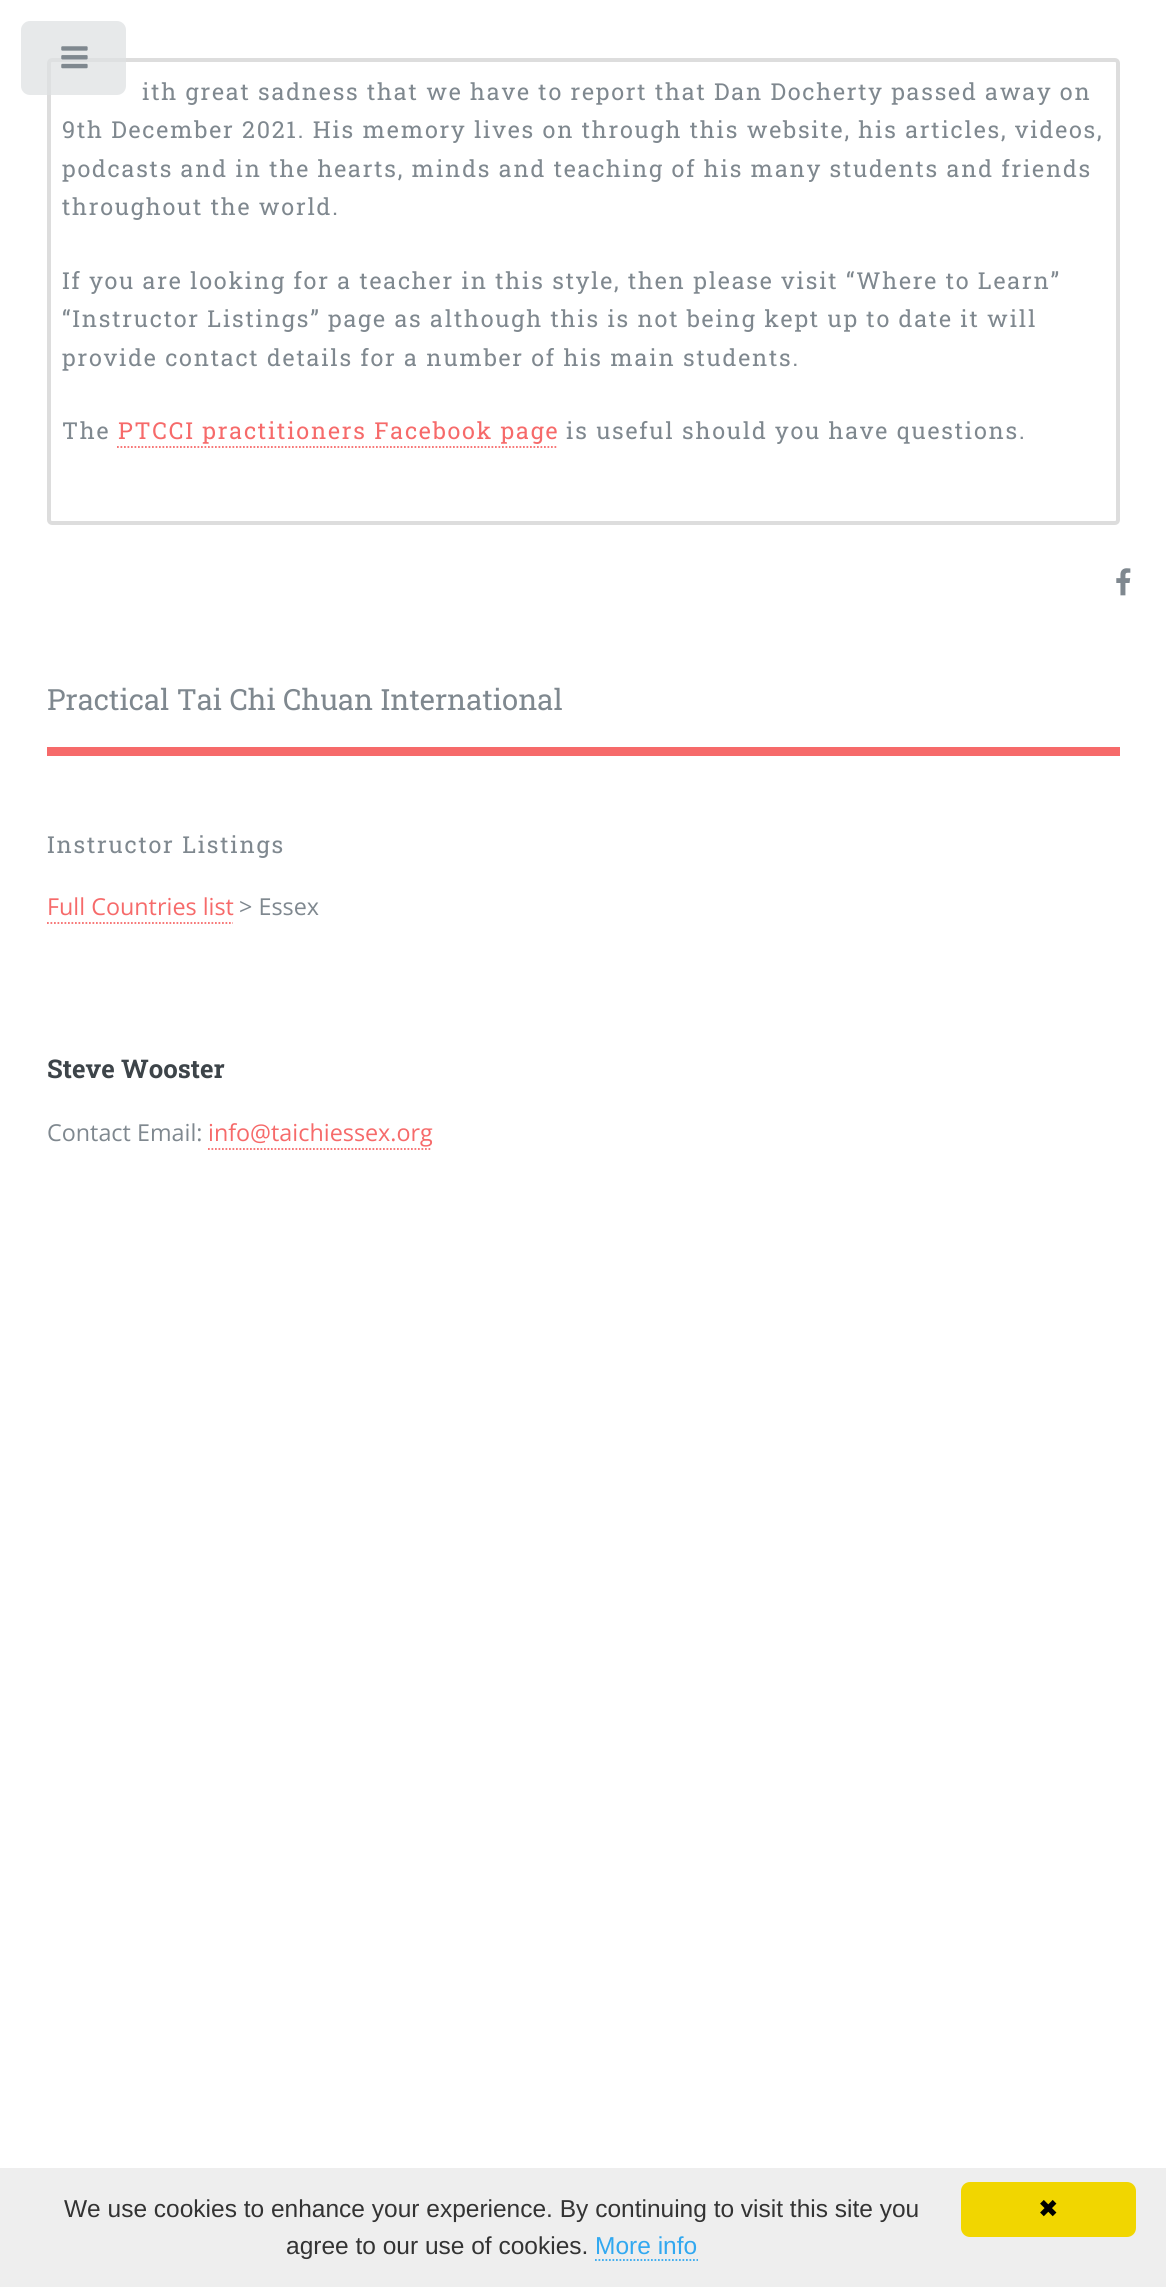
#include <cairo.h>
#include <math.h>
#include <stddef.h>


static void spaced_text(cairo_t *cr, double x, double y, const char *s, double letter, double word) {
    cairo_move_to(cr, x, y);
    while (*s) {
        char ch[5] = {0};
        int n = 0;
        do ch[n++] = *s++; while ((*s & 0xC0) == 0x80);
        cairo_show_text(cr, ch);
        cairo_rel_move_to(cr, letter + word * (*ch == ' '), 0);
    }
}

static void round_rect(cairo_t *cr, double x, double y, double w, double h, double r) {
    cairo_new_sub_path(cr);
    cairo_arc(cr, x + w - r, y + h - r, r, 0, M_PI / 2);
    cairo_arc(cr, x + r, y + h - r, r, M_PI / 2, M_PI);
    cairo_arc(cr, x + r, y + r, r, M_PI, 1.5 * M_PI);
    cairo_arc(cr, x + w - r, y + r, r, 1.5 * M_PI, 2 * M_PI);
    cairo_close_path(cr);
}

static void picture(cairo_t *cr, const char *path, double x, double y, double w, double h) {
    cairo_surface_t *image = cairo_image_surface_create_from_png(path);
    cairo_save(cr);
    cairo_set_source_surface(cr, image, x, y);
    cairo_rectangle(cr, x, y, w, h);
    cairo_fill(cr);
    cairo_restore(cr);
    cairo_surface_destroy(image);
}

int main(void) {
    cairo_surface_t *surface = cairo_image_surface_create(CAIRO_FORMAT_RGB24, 1166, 2287);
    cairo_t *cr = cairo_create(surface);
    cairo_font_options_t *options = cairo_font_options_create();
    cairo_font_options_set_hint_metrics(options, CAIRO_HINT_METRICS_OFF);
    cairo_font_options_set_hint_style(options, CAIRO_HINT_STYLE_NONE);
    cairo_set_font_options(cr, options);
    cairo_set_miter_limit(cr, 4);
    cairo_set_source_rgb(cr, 1, 1, 1);
    cairo_paint(cr);
    round_rect(cr, 49, 60, 1069, 463, 3);
    cairo_set_source_rgb(cr, 0.867, 0.867, 0.867);
    cairo_set_line_width(cr, 4);
    cairo_stroke(cr);
    cairo_set_source_rgba(cr, 0.871, 0.882, 0.886, 0.75);
    round_rect(cr, 21, 21, 105, 74, 9);
    cairo_fill(cr);
    picture(cr, "img1.png", 61, 46, 27, 23);
    cairo_select_font_face(cr, "Roboto Slab", CAIRO_FONT_SLANT_NORMAL, CAIRO_FONT_WEIGHT_NORMAL);
    cairo_set_font_size(cr, 23.35);
    cairo_set_source_rgb(cr, 0.498, 0.533, 0.561);
    spaced_text(cr, 142, 100, "ith great sadness that we have to report that Dan Docherty passed away on", 1.75, 0);
    spaced_text(cr, 62, 138, "9th December 2021. His memory lives on through this website, his articles, videos,", 1.75, 0);
    spaced_text(cr, 62, 177, "podcasts and in the hearts, minds and teaching of his many students and friends", 1.75, 0);
    spaced_text(cr, 62, 215, "throughout the world.", 1.75, 0);
    spaced_text(cr, 62, 289, "If you are looking for a teacher in this style, then please visit “Where to Learn”", 1.75, 0);
    spaced_text(cr, 62, 327, "“Instructor Listings” page as although this is not being kept up to date it will", 1.75, 0);
    spaced_text(cr, 62, 366, "provide contact details for a number of his main students.", 1.75, 0);
    spaced_text(cr, 62, 439, "The", 1.75, 0);
    cairo_set_source_rgb(cr, 0.961, 0.416, 0.416);
    spaced_text(cr, 118, 439, "PTCCI practitioners Facebook page", 1.75, 0);
    cairo_new_path(cr);
    cairo_move_to(cr, 117, 447);
    cairo_line_to(cr, 558, 447);
    cairo_set_line_width(cr, 1.8);
    cairo_set_dash(cr, (double[]){1.75, 1.75}, 2, 0);
    cairo_stroke(cr);
    cairo_set_source_rgb(cr, 0.498, 0.533, 0.561);
    spaced_text(cr, 566, 439, "is useful should you have questions.", 1.75, 0);
    cairo_set_source_rgb(cr, 0.961, 0.416, 0.416);
    cairo_rectangle(cr, 47, 747, 1073, 9);
    cairo_fill(cr);
    picture(cr, "img2.png", 1116, 568, 15, 28);
    cairo_set_font_size(cr, 29.2);
    cairo_set_source_rgb(cr, 0.498, 0.533, 0.561);
    cairo_move_to(cr, 47, 710);
    cairo_show_text(cr, "Practical Tai Chi Chuan International");
    cairo_set_font_size(cr, 23.35);
    spaced_text(cr, 47, 853, "Instructor Listings", 1.75, 0);
    cairo_select_font_face(cr, "Open Sans", CAIRO_FONT_SLANT_NORMAL, CAIRO_FONT_WEIGHT_NORMAL);
    cairo_set_source_rgb(cr, 0.961, 0.416, 0.416);
    cairo_move_to(cr, 47, 915);
    cairo_show_text(cr, "Full Countries list");
    cairo_new_path(cr);
    cairo_move_to(cr, 47, 923);
    cairo_line_to(cr, 233, 923);
    cairo_stroke(cr);
    cairo_set_source_rgb(cr, 0.498, 0.533, 0.561);
    cairo_move_to(cr, 239, 915);
    cairo_show_text(cr, "> Essex");
    cairo_select_font_face(cr, "Roboto Slab", CAIRO_FONT_SLANT_NORMAL, CAIRO_FONT_WEIGHT_BOLD);
    cairo_set_font_size(cr, 25.75);
    cairo_set_source_rgb(cr, 0.239, 0.267, 0.286);
    cairo_move_to(cr, 47, 1078);
    cairo_show_text(cr, "Steve Wooster");
    cairo_select_font_face(cr, "Open Sans", CAIRO_FONT_SLANT_NORMAL, CAIRO_FONT_WEIGHT_NORMAL);
    cairo_set_font_size(cr, 23.35);
    cairo_set_source_rgb(cr, 0.498, 0.533, 0.561);
    cairo_move_to(cr, 47, 1141);
    cairo_show_text(cr, "Contact Email:");
    cairo_set_source_rgb(cr, 0.961, 0.416, 0.416);
    cairo_move_to(cr, 208, 1141);
    cairo_show_text(cr, "info@taichiessex.org");
    cairo_new_path(cr);
    cairo_move_to(cr, 208, 1149);
    cairo_line_to(cr, 432, 1149);
    cairo_stroke(cr);
    cairo_set_source_rgb(cr, 0.933, 0.933, 0.933);
    cairo_rectangle(cr, 0, 2168, 1166, 119);
    cairo_fill(cr);
    cairo_select_font_face(cr, "Liberation Sans", CAIRO_FONT_SLANT_NORMAL, CAIRO_FONT_WEIGHT_NORMAL);
    cairo_set_font_size(cr, 24.5);
    cairo_set_source_rgb(cr, 0.2, 0.2, 0.2);
    cairo_move_to(cr, 64, 2217);
    cairo_show_text(cr, "We use cookies to enhance your experience. By continuing to visit this site you");
    cairo_move_to(cr, 286, 2254);
    cairo_show_text(cr, "agree to our use of cookies.");
    cairo_set_source_rgb(cr, 0.192, 0.659, 0.941);
    cairo_move_to(cr, 595, 2254);
    cairo_show_text(cr, "More info");
    cairo_new_path(cr);
    cairo_move_to(cr, 595, 2260);
    cairo_line_to(cr, 698, 2260);
    cairo_stroke(cr);
    cairo_set_source_rgb(cr, 0.945, 0.839, 0);
    round_rect(cr, 961, 2182, 175, 55, 9);
    cairo_fill(cr);
    cairo_select_font_face(cr, "DejaVu Sans", CAIRO_FONT_SLANT_NORMAL, CAIRO_FONT_WEIGHT_NORMAL);
    cairo_set_source_rgb(cr, 0, 0, 0);
    cairo_move_to(cr, 1038, 2217);
    cairo_show_text(cr, "✖");
    cairo_surface_write_to_png(surface, "page.png");
    cairo_font_options_destroy(options);
    cairo_destroy(cr);
    cairo_surface_destroy(surface);
    return 0;
}
